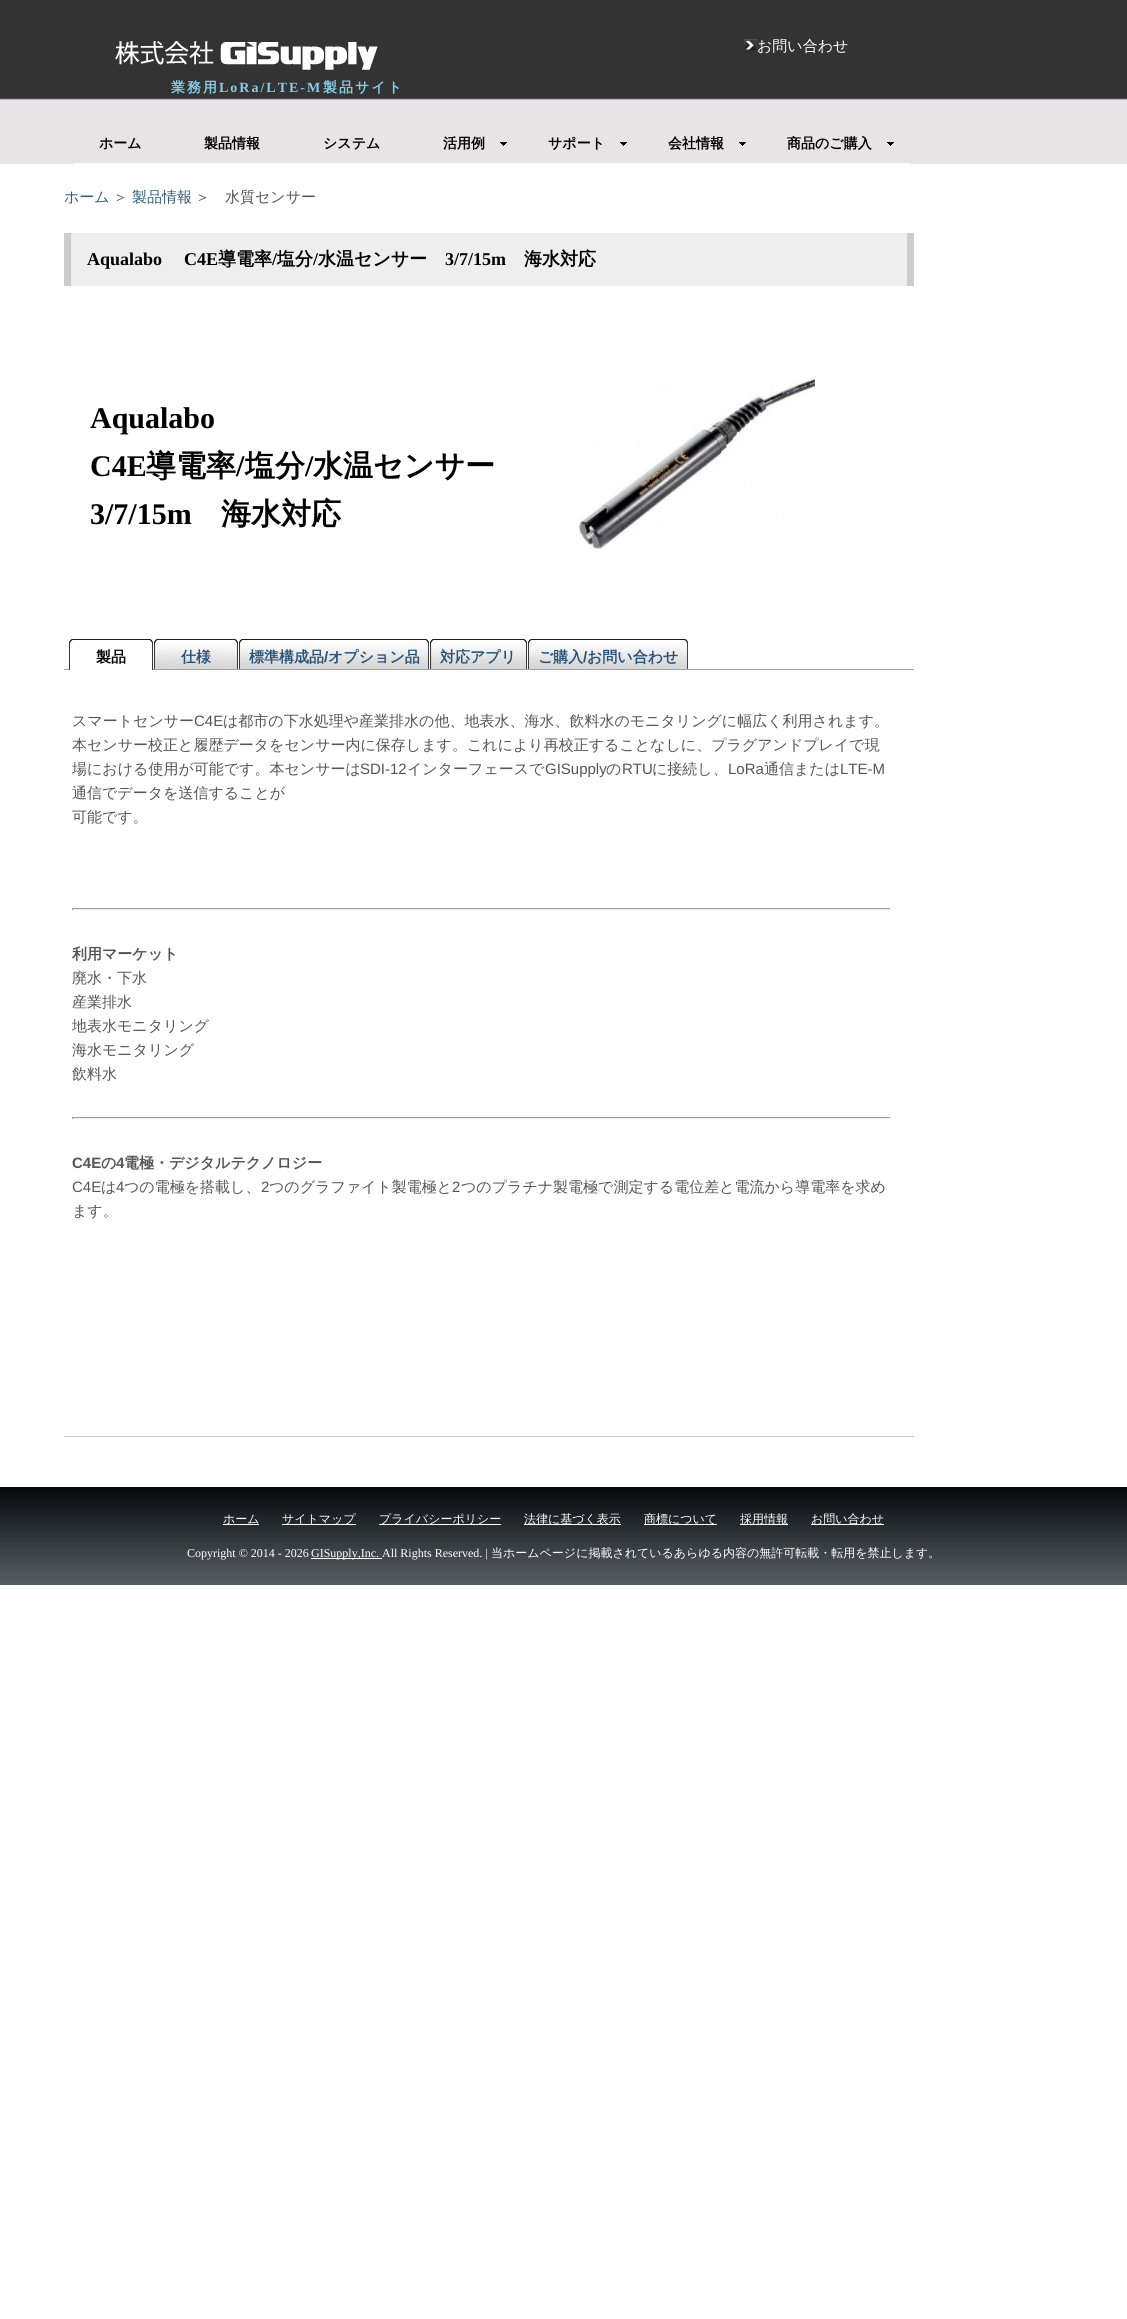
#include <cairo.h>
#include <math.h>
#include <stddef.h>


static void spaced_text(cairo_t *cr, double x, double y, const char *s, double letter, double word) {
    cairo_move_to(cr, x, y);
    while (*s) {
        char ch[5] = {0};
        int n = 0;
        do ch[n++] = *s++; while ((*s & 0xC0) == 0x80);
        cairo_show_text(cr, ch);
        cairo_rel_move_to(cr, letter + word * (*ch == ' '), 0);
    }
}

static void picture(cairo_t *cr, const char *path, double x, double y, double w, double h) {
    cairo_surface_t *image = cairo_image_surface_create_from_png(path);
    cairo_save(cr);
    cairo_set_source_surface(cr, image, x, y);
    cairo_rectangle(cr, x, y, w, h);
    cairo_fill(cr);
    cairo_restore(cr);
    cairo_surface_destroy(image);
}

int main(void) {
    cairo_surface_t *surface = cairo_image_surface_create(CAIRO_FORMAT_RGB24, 1127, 2319);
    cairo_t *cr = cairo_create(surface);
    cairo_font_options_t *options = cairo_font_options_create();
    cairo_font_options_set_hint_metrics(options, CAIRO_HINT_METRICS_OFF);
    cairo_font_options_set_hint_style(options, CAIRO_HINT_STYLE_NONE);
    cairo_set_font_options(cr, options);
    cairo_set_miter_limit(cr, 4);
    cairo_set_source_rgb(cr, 1, 1, 1);
    cairo_paint(cr);
    picture(cr, "img1.png", 0, 0, 1127, 164);
    picture(cr, "img2.png", 744, 39, 13, 12);
    cairo_select_font_face(cr, "WenQuanYi Zen Hei Medium", CAIRO_FONT_SLANT_NORMAL, CAIRO_FONT_WEIGHT_NORMAL);
    cairo_set_font_size(cr, 15);
    cairo_set_source_rgb(cr, 1, 1, 1);
    cairo_move_to(cr, 757, 51);
    cairo_show_text(cr, "お問い合わせ");
    picture(cr, "img3.png", 115, 41, 263, 29);
    cairo_select_font_face(cr, "WenQuanYi Zen Hei", CAIRO_FONT_SLANT_NORMAL, CAIRO_FONT_WEIGHT_BOLD);
    cairo_set_font_size(cr, 14);
    cairo_set_source_rgb(cr, 0.529, 0.808, 0.922);
    spaced_text(cr, 171, 92, "業務用", 2, 0);
    cairo_select_font_face(cr, "Liberation Serif", CAIRO_FONT_SLANT_NORMAL, CAIRO_FONT_WEIGHT_BOLD);
    spaced_text(cr, 219, 92, "LoRa/LTE-M", 2, 0);
    cairo_select_font_face(cr, "WenQuanYi Zen Hei", CAIRO_FONT_SLANT_NORMAL, CAIRO_FONT_WEIGHT_BOLD);
    spaced_text(cr, 323, 92, "製品サイト", 2, 0);
    picture(cr, "img4.png", 74, 162, 105, 2);
    cairo_set_source_rgb(cr, 0, 0, 0);
    cairo_move_to(cr, 99, 148);
    cairo_show_text(cr, "ホーム");
    picture(cr, "img5.png", 179, 162, 119, 2);
    cairo_move_to(cr, 204, 148);
    cairo_show_text(cr, "製品情報");
    picture(cr, "img6.png", 298, 162, 120, 2);
    cairo_move_to(cr, 323, 148);
    cairo_show_text(cr, "システム");
    picture(cr, "img4.png", 418, 162, 105, 2);
    cairo_move_to(cr, 443, 148);
    cairo_show_text(cr, "活用例");
    picture(cr, "img7.png", 500, 142, 7, 5);
    picture(cr, "img6.png", 523, 162, 120, 2);
    cairo_move_to(cr, 548, 148);
    cairo_show_text(cr, "サポート");
    picture(cr, "img7.png", 620, 142, 7, 5);
    picture(cr, "img5.png", 643, 162, 119, 2);
    cairo_move_to(cr, 668, 148);
    cairo_show_text(cr, "会社情報");
    picture(cr, "img7.png", 739, 142, 7, 5);
    picture(cr, "img8.png", 762, 162, 148, 2);
    cairo_move_to(cr, 787, 148);
    cairo_show_text(cr, "商品のご購入");
    picture(cr, "img7.png", 887, 142, 7, 5);
    cairo_select_font_face(cr, "WenQuanYi Zen Hei Medium", CAIRO_FONT_SLANT_NORMAL, CAIRO_FONT_WEIGHT_NORMAL);
    cairo_set_font_size(cr, 15);
    cairo_set_source_rgb(cr, 0.196, 0.365, 0.502);
    cairo_move_to(cr, 64, 202);
    cairo_show_text(cr, "ホーム");
    cairo_set_source_rgb(cr, 0.333, 0.333, 0.333);
    cairo_move_to(cr, 113, 202);
    cairo_show_text(cr, "＞");
    cairo_set_source_rgb(cr, 0.196, 0.365, 0.502);
    cairo_move_to(cr, 132, 202);
    cairo_show_text(cr, "製品情報");
    cairo_set_source_rgb(cr, 0.333, 0.333, 0.333);
    cairo_move_to(cr, 195, 202);
    cairo_show_text(cr, "＞　水質センサー");
    cairo_set_source_rgb(cr, 0.933, 0.933, 0.933);
    cairo_rectangle(cr, 71, 233, 836, 53);
    cairo_fill(cr);
    cairo_set_source_rgb(cr, 0.8, 0.8, 0.8);
    cairo_rectangle(cr, 907, 233, 7, 53);
    cairo_fill(cr);
    cairo_rectangle(cr, 64, 233, 7, 53);
    cairo_fill(cr);
    cairo_select_font_face(cr, "Liberation Serif", CAIRO_FONT_SLANT_NORMAL, CAIRO_FONT_WEIGHT_BOLD);
    cairo_set_font_size(cr, 18);
    cairo_set_source_rgb(cr, 0, 0, 0);
    cairo_move_to(cr, 87, 265);
    cairo_show_text(cr, "Aqualabo");
    cairo_move_to(cr, 184, 265);
    cairo_show_text(cr, "C4E");
    cairo_select_font_face(cr, "WenQuanYi Zen Hei", CAIRO_FONT_SLANT_NORMAL, CAIRO_FONT_WEIGHT_BOLD);
    cairo_move_to(cr, 218, 265);
    cairo_show_text(cr, "導電率");
    cairo_select_font_face(cr, "Liberation Serif", CAIRO_FONT_SLANT_NORMAL, CAIRO_FONT_WEIGHT_BOLD);
    cairo_move_to(cr, 272, 265);
    cairo_show_text(cr, "/");
    cairo_select_font_face(cr, "WenQuanYi Zen Hei", CAIRO_FONT_SLANT_NORMAL, CAIRO_FONT_WEIGHT_BOLD);
    cairo_move_to(cr, 277, 265);
    cairo_show_text(cr, "塩分");
    cairo_select_font_face(cr, "Liberation Serif", CAIRO_FONT_SLANT_NORMAL, CAIRO_FONT_WEIGHT_BOLD);
    cairo_move_to(cr, 313, 265);
    cairo_show_text(cr, "/");
    cairo_select_font_face(cr, "WenQuanYi Zen Hei", CAIRO_FONT_SLANT_NORMAL, CAIRO_FONT_WEIGHT_BOLD);
    cairo_move_to(cr, 318, 265);
    cairo_show_text(cr, "水温センサー");
    cairo_select_font_face(cr, "Liberation Serif", CAIRO_FONT_SLANT_NORMAL, CAIRO_FONT_WEIGHT_BOLD);
    cairo_move_to(cr, 445, 265);
    cairo_show_text(cr, "3/7/15m");
    cairo_select_font_face(cr, "WenQuanYi Zen Hei", CAIRO_FONT_SLANT_NORMAL, CAIRO_FONT_WEIGHT_BOLD);
    cairo_move_to(cr, 524, 265);
    cairo_show_text(cr, "海水対応");
    cairo_select_font_face(cr, "Liberation Serif", CAIRO_FONT_SLANT_NORMAL, CAIRO_FONT_WEIGHT_BOLD);
    cairo_set_font_size(cr, 30);
    cairo_move_to(cr, 90, 428);
    cairo_show_text(cr, "Aqualabo");
    cairo_move_to(cr, 90, 476);
    cairo_show_text(cr, "C4E");
    cairo_select_font_face(cr, "WenQuanYi Zen Hei", CAIRO_FONT_SLANT_NORMAL, CAIRO_FONT_WEIGHT_BOLD);
    cairo_move_to(cr, 146, 476);
    cairo_show_text(cr, "導電率");
    cairo_select_font_face(cr, "Liberation Serif", CAIRO_FONT_SLANT_NORMAL, CAIRO_FONT_WEIGHT_BOLD);
    cairo_move_to(cr, 236, 476);
    cairo_show_text(cr, "/");
    cairo_select_font_face(cr, "WenQuanYi Zen Hei", CAIRO_FONT_SLANT_NORMAL, CAIRO_FONT_WEIGHT_BOLD);
    cairo_move_to(cr, 245, 476);
    cairo_show_text(cr, "塩分");
    cairo_select_font_face(cr, "Liberation Serif", CAIRO_FONT_SLANT_NORMAL, CAIRO_FONT_WEIGHT_BOLD);
    cairo_move_to(cr, 305, 476);
    cairo_show_text(cr, "/");
    cairo_select_font_face(cr, "WenQuanYi Zen Hei", CAIRO_FONT_SLANT_NORMAL, CAIRO_FONT_WEIGHT_BOLD);
    cairo_move_to(cr, 313, 476);
    cairo_show_text(cr, "水温センサー");
    cairo_select_font_face(cr, "Liberation Serif", CAIRO_FONT_SLANT_NORMAL, CAIRO_FONT_WEIGHT_BOLD);
    cairo_move_to(cr, 90, 524);
    cairo_show_text(cr, "3/7/15m");
    cairo_select_font_face(cr, "WenQuanYi Zen Hei", CAIRO_FONT_SLANT_NORMAL, CAIRO_FONT_WEIGHT_BOLD);
    cairo_move_to(cr, 221, 524);
    cairo_show_text(cr, "海水対応");
    picture(cr, "img9.png", 578, 377, 237, 173);
    cairo_set_source_rgb(cr, 0.592, 0.647, 0.69);
    cairo_rectangle(cr, 64, 669, 850, 1);
    cairo_fill(cr);
    picture(cr, "img10.png", 113, 639, 40, 31);
    picture(cr, "img11.png", 69, 639, 44, 31);
    cairo_set_font_size(cr, 15);
    cairo_set_source_rgb(cr, 0, 0, 0);
    cairo_move_to(cr, 96, 662);
    cairo_show_text(cr, "製品");
    picture(cr, "img12.png", 228, 639, 10, 30);
    picture(cr, "img13.png", 154, 639, 74, 30);
    cairo_set_source_rgb(cr, 0.153, 0.325, 0.478);
    cairo_move_to(cr, 181, 662);
    cairo_show_text(cr, "仕様");
    picture(cr, "img14.png", 408, 639, 21, 30);
    picture(cr, "img15.png", 239, 639, 169, 30);
    cairo_move_to(cr, 249, 662);
    cairo_show_text(cr, "標準構成品");
    cairo_select_font_face(cr, "Liberation Sans", CAIRO_FONT_SLANT_NORMAL, CAIRO_FONT_WEIGHT_BOLD);
    cairo_move_to(cr, 324, 662);
    cairo_show_text(cr, "/");
    cairo_select_font_face(cr, "WenQuanYi Zen Hei", CAIRO_FONT_SLANT_NORMAL, CAIRO_FONT_WEIGHT_BOLD);
    cairo_move_to(cr, 328, 662);
    cairo_show_text(cr, "オプション品");
    picture(cr, "img16.png", 510, 639, 17, 30);
    picture(cr, "img17.png", 430, 639, 80, 30);
    cairo_move_to(cr, 440, 662);
    cairo_show_text(cr, "対応アプリ");
    picture(cr, "img18.png", 650, 639, 38, 30);
    picture(cr, "img19.png", 528, 639, 122, 30);
    cairo_move_to(cr, 538, 662);
    cairo_show_text(cr, "ご購入");
    cairo_select_font_face(cr, "Liberation Sans", CAIRO_FONT_SLANT_NORMAL, CAIRO_FONT_WEIGHT_BOLD);
    cairo_move_to(cr, 583, 662);
    cairo_show_text(cr, "/");
    cairo_select_font_face(cr, "WenQuanYi Zen Hei", CAIRO_FONT_SLANT_NORMAL, CAIRO_FONT_WEIGHT_BOLD);
    cairo_move_to(cr, 587, 662);
    cairo_show_text(cr, "お問い合わせ");
    cairo_select_font_face(cr, "WenQuanYi Zen Hei Medium", CAIRO_FONT_SLANT_NORMAL, CAIRO_FONT_WEIGHT_NORMAL);
    cairo_set_source_rgb(cr, 0.333, 0.333, 0.333);
    cairo_move_to(cr, 72, 726);
    cairo_show_text(cr, "スマートセンサー");
    cairo_select_font_face(cr, "Liberation Sans", CAIRO_FONT_SLANT_NORMAL, CAIRO_FONT_WEIGHT_NORMAL);
    cairo_move_to(cr, 194, 726);
    cairo_show_text(cr, "C4E");
    cairo_select_font_face(cr, "WenQuanYi Zen Hei Medium", CAIRO_FONT_SLANT_NORMAL, CAIRO_FONT_WEIGHT_NORMAL);
    cairo_move_to(cr, 223, 726);
    cairo_show_text(cr, "は都市の下水処理や産業排水の他、地表水、海水、飲料水のモニタリングに幅広く利用されます。");
    cairo_move_to(cr, 72, 750);
    cairo_show_text(cr, "本センサー校正と履歴データをセンサー内に保存します。これにより再校正することなしに、プラグアンドプレイで現");
    cairo_move_to(cr, 72, 774);
    cairo_show_text(cr, "場における使用が可能です。本センサーは");
    cairo_select_font_face(cr, "Liberation Sans", CAIRO_FONT_SLANT_NORMAL, CAIRO_FONT_WEIGHT_NORMAL);
    cairo_move_to(cr, 360, 774);
    cairo_show_text(cr, "SDI-12");
    cairo_select_font_face(cr, "WenQuanYi Zen Hei Medium", CAIRO_FONT_SLANT_NORMAL, CAIRO_FONT_WEIGHT_NORMAL);
    cairo_move_to(cr, 407, 774);
    cairo_show_text(cr, "インターフェースで");
    cairo_select_font_face(cr, "Liberation Sans", CAIRO_FONT_SLANT_NORMAL, CAIRO_FONT_WEIGHT_NORMAL);
    cairo_move_to(cr, 545, 774);
    cairo_show_text(cr, "GISupply");
    cairo_select_font_face(cr, "WenQuanYi Zen Hei Medium", CAIRO_FONT_SLANT_NORMAL, CAIRO_FONT_WEIGHT_NORMAL);
    cairo_move_to(cr, 606, 774);
    cairo_show_text(cr, "の");
    cairo_select_font_face(cr, "Liberation Sans", CAIRO_FONT_SLANT_NORMAL, CAIRO_FONT_WEIGHT_NORMAL);
    cairo_move_to(cr, 622, 774);
    cairo_show_text(cr, "RTU");
    cairo_select_font_face(cr, "WenQuanYi Zen Hei Medium", CAIRO_FONT_SLANT_NORMAL, CAIRO_FONT_WEIGHT_NORMAL);
    cairo_move_to(cr, 652, 774);
    cairo_show_text(cr, "に接続し、");
    cairo_select_font_face(cr, "Liberation Sans", CAIRO_FONT_SLANT_NORMAL, CAIRO_FONT_WEIGHT_NORMAL);
    cairo_move_to(cr, 728, 774);
    cairo_show_text(cr, "LoRa");
    cairo_select_font_face(cr, "WenQuanYi Zen Hei Medium", CAIRO_FONT_SLANT_NORMAL, CAIRO_FONT_WEIGHT_NORMAL);
    cairo_move_to(cr, 764, 774);
    cairo_show_text(cr, "通信または");
    cairo_select_font_face(cr, "Liberation Sans", CAIRO_FONT_SLANT_NORMAL, CAIRO_FONT_WEIGHT_NORMAL);
    cairo_move_to(cr, 840, 774);
    cairo_show_text(cr, "LTE-M");
    cairo_select_font_face(cr, "WenQuanYi Zen Hei Medium", CAIRO_FONT_SLANT_NORMAL, CAIRO_FONT_WEIGHT_NORMAL);
    cairo_move_to(cr, 72, 798);
    cairo_show_text(cr, "通信でデータを送信することが");
    cairo_move_to(cr, 72, 822);
    cairo_show_text(cr, "可能です。");
    cairo_set_source_rgb(cr, 0.624, 0.624, 0.624);
    cairo_rectangle(cr, 72, 908, 819, 1);
    cairo_fill(cr);
    cairo_set_source_rgb(cr, 0.933, 0.933, 0.933);
    cairo_rectangle(cr, 890, 908, 1, 2);
    cairo_fill(cr);
    cairo_rectangle(cr, 72, 909, 819, 1);
    cairo_fill(cr);
    cairo_set_source_rgb(cr, 0.624, 0.624, 0.624);
    cairo_rectangle(cr, 72, 908, 1, 2);
    cairo_fill(cr);
    cairo_select_font_face(cr, "WenQuanYi Zen Hei", CAIRO_FONT_SLANT_NORMAL, CAIRO_FONT_WEIGHT_BOLD);
    cairo_set_source_rgb(cr, 0.333, 0.333, 0.333);
    cairo_move_to(cr, 72, 959);
    cairo_show_text(cr, "利用マーケット");
    cairo_select_font_face(cr, "WenQuanYi Zen Hei Medium", CAIRO_FONT_SLANT_NORMAL, CAIRO_FONT_WEIGHT_NORMAL);
    cairo_move_to(cr, 72, 983);
    cairo_show_text(cr, "廃水・下水");
    cairo_move_to(cr, 72, 1007);
    cairo_show_text(cr, "産業排水");
    cairo_move_to(cr, 72, 1031);
    cairo_show_text(cr, "地表水モニタリング");
    cairo_move_to(cr, 72, 1055);
    cairo_show_text(cr, "海水モニタリング");
    cairo_move_to(cr, 72, 1079);
    cairo_show_text(cr, "飲料水");
    cairo_set_source_rgb(cr, 0.624, 0.624, 0.624);
    cairo_rectangle(cr, 72, 1117, 819, 1);
    cairo_fill(cr);
    cairo_set_source_rgb(cr, 0.933, 0.933, 0.933);
    cairo_rectangle(cr, 890, 1117, 1, 2);
    cairo_fill(cr);
    cairo_rectangle(cr, 72, 1118, 819, 1);
    cairo_fill(cr);
    cairo_set_source_rgb(cr, 0.624, 0.624, 0.624);
    cairo_rectangle(cr, 72, 1117, 1, 2);
    cairo_fill(cr);
    cairo_select_font_face(cr, "Liberation Sans", CAIRO_FONT_SLANT_NORMAL, CAIRO_FONT_WEIGHT_BOLD);
    cairo_set_source_rgb(cr, 0.333, 0.333, 0.333);
    cairo_move_to(cr, 72, 1168);
    cairo_show_text(cr, "C4E");
    cairo_select_font_face(cr, "WenQuanYi Zen Hei", CAIRO_FONT_SLANT_NORMAL, CAIRO_FONT_WEIGHT_BOLD);
    cairo_move_to(cr, 101, 1168);
    cairo_show_text(cr, "の");
    cairo_select_font_face(cr, "Liberation Sans", CAIRO_FONT_SLANT_NORMAL, CAIRO_FONT_WEIGHT_BOLD);
    cairo_move_to(cr, 116, 1168);
    cairo_show_text(cr, "4");
    cairo_select_font_face(cr, "WenQuanYi Zen Hei", CAIRO_FONT_SLANT_NORMAL, CAIRO_FONT_WEIGHT_BOLD);
    cairo_move_to(cr, 124, 1168);
    cairo_show_text(cr, "電極・デジタルテクノロジー");
    cairo_select_font_face(cr, "Liberation Sans", CAIRO_FONT_SLANT_NORMAL, CAIRO_FONT_WEIGHT_NORMAL);
    cairo_move_to(cr, 72, 1192);
    cairo_show_text(cr, "C4E");
    cairo_select_font_face(cr, "WenQuanYi Zen Hei Medium", CAIRO_FONT_SLANT_NORMAL, CAIRO_FONT_WEIGHT_NORMAL);
    cairo_move_to(cr, 101, 1192);
    cairo_show_text(cr, "は");
    cairo_select_font_face(cr, "Liberation Sans", CAIRO_FONT_SLANT_NORMAL, CAIRO_FONT_WEIGHT_NORMAL);
    cairo_move_to(cr, 116, 1192);
    cairo_show_text(cr, "4");
    cairo_select_font_face(cr, "WenQuanYi Zen Hei Medium", CAIRO_FONT_SLANT_NORMAL, CAIRO_FONT_WEIGHT_NORMAL);
    cairo_move_to(cr, 124, 1192);
    cairo_show_text(cr, "つの電極を搭載し、");
    cairo_select_font_face(cr, "Liberation Sans", CAIRO_FONT_SLANT_NORMAL, CAIRO_FONT_WEIGHT_NORMAL);
    cairo_move_to(cr, 261, 1192);
    cairo_show_text(cr, "2");
    cairo_select_font_face(cr, "WenQuanYi Zen Hei Medium", CAIRO_FONT_SLANT_NORMAL, CAIRO_FONT_WEIGHT_NORMAL);
    cairo_move_to(cr, 269, 1192);
    cairo_show_text(cr, "つのグラファイト製電極と");
    cairo_select_font_face(cr, "Liberation Sans", CAIRO_FONT_SLANT_NORMAL, CAIRO_FONT_WEIGHT_NORMAL);
    cairo_move_to(cr, 452, 1192);
    cairo_show_text(cr, "2");
    cairo_select_font_face(cr, "WenQuanYi Zen Hei Medium", CAIRO_FONT_SLANT_NORMAL, CAIRO_FONT_WEIGHT_NORMAL);
    cairo_move_to(cr, 461, 1192);
    cairo_show_text(cr, "つのプラチナ製電極で測定する電位差と電流から導電率を求め");
    cairo_move_to(cr, 72, 1216);
    cairo_show_text(cr, "ます。");
    cairo_set_source_rgb(cr, 0.8, 0.8, 0.8);
    cairo_rectangle(cr, 64, 1436, 850, 1);
    cairo_fill(cr);
    picture(cr, "img20.png", 0, 1487, 1127, 98);
    cairo_set_source_rgb(cr, 1, 1, 1);
    cairo_rectangle(cr, 223, 1524, 36, 1);
    cairo_fill(cr);
    cairo_set_font_size(cr, 12);
    cairo_move_to(cr, 223, 1523);
    cairo_show_text(cr, "ホーム");
    cairo_rectangle(cr, 282, 1524, 74, 1);
    cairo_fill(cr);
    cairo_move_to(cr, 282, 1523);
    cairo_show_text(cr, "サイトマップ");
    cairo_rectangle(cr, 379, 1524, 122, 1);
    cairo_fill(cr);
    cairo_move_to(cr, 379, 1523);
    cairo_show_text(cr, "プライバシーポリシー");
    cairo_rectangle(cr, 524, 1524, 97, 1);
    cairo_fill(cr);
    cairo_move_to(cr, 524, 1523);
    cairo_show_text(cr, "法律に基づく表示");
    cairo_rectangle(cr, 644, 1524, 73, 1);
    cairo_fill(cr);
    cairo_move_to(cr, 644, 1523);
    cairo_show_text(cr, "商標について");
    cairo_rectangle(cr, 740, 1524, 48, 1);
    cairo_fill(cr);
    cairo_move_to(cr, 740, 1523);
    cairo_show_text(cr, "採用情報");
    cairo_rectangle(cr, 811, 1524, 73, 1);
    cairo_fill(cr);
    cairo_move_to(cr, 811, 1523);
    cairo_show_text(cr, "お問い合わせ");
    cairo_select_font_face(cr, "Liberation Serif", CAIRO_FONT_SLANT_NORMAL, CAIRO_FONT_WEIGHT_NORMAL);
    cairo_move_to(cr, 187, 1557);
    cairo_show_text(cr, "Copyright © 2014 - 2026");
    cairo_rectangle(cr, 311, 1558, 71, 1);
    cairo_fill(cr);
    cairo_move_to(cr, 311, 1557);
    cairo_show_text(cr, "GISupply,Inc. All Rights Reserved. |");
    cairo_select_font_face(cr, "WenQuanYi Zen Hei Medium", CAIRO_FONT_SLANT_NORMAL, CAIRO_FONT_WEIGHT_NORMAL);
    cairo_move_to(cr, 491, 1557);
    cairo_show_text(cr, "当ホームページに掲載されているあらゆる内容の無許可転載・転用を禁止します。");
    cairo_surface_write_to_png(surface, "page.png");
    cairo_font_options_destroy(options);
    cairo_destroy(cr);
    cairo_surface_destroy(surface);
    return 0;
}
